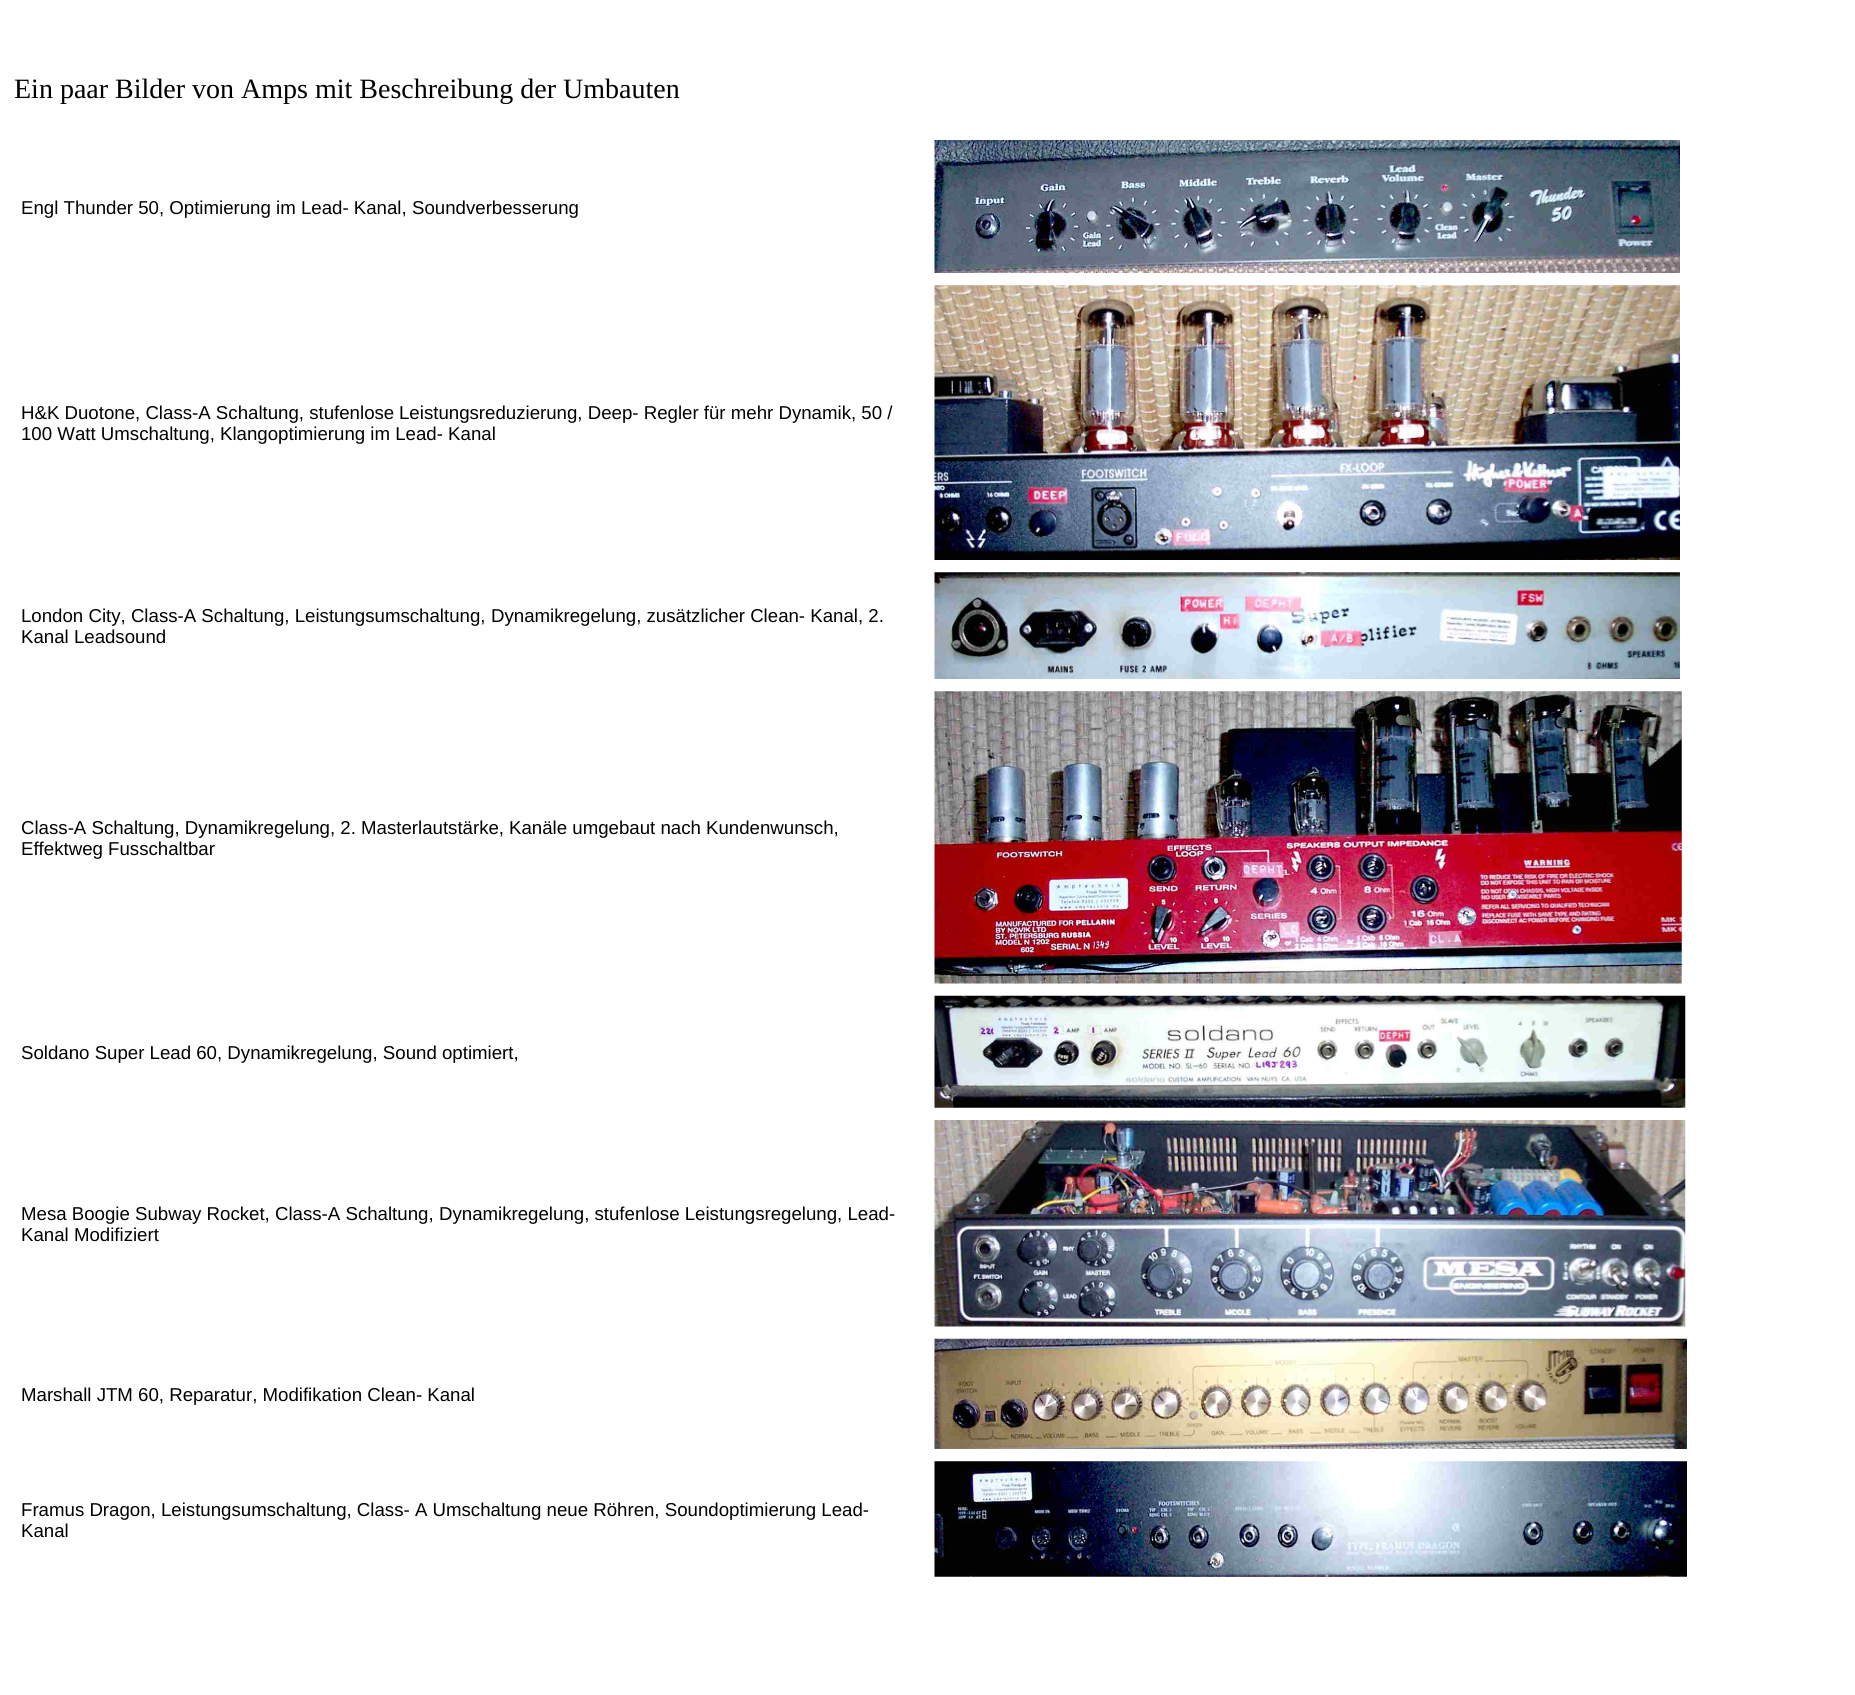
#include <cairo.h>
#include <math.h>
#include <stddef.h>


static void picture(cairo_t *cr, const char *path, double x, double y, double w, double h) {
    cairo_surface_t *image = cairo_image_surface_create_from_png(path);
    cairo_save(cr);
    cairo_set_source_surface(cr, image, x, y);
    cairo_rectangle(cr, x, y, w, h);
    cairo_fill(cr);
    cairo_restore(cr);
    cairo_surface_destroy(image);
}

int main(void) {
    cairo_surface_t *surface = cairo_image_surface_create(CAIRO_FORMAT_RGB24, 1855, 1695);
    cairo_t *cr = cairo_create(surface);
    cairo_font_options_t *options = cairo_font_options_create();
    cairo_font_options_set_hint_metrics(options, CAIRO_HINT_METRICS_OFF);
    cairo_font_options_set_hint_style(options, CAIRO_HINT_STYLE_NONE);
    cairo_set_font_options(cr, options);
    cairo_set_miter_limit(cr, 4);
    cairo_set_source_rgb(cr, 1, 1, 1);
    cairo_paint(cr);
    cairo_select_font_face(cr, "Liberation Serif", CAIRO_FONT_SLANT_NORMAL, CAIRO_FONT_WEIGHT_NORMAL);
    cairo_set_font_size(cr, 28);
    cairo_set_source_rgb(cr, 0, 0, 0);
    cairo_move_to(cr, 14, 98);
    cairo_show_text(cr, "Ein paar Bilder von Amps mit Beschreibung der Umbauten");
    cairo_select_font_face(cr, "Liberation Sans", CAIRO_FONT_SLANT_NORMAL, CAIRO_FONT_WEIGHT_NORMAL);
    cairo_set_font_size(cr, 18.65);
    cairo_move_to(cr, 21, 214);
    cairo_show_text(cr, "Engl Thunder 50, Optimierung im Lead- Kanal,");
    cairo_move_to(cr, 412, 214);
    cairo_show_text(cr, "Soundverbesserung");
    picture(cr, "img1.png", 934, 140, 746, 133);
    cairo_move_to(cr, 21, 419);
    cairo_show_text(cr, "H&K Duotone, Class-A Schaltung, stufenlose");
    cairo_move_to(cr, 399, 419);
    cairo_show_text(cr, "Leistungsreduzierung, Deep- Regler für mehr Dynamik, 50 /");
    cairo_move_to(cr, 21, 440);
    cairo_show_text(cr, "100 Watt Umschaltung, Klangoptimierung im Lead- Kanal");
    picture(cr, "img2.png", 934, 285, 746, 275);
    cairo_move_to(cr, 21, 622);
    cairo_show_text(cr, "London City, Class-A Schaltung, Leistungsumschaltung,");
    cairo_move_to(cr, 491, 622);
    cairo_show_text(cr, "Dynamikregelung, zusätzlicher Clean- Kanal, 2.");
    cairo_move_to(cr, 21, 643);
    cairo_show_text(cr, "Kanal Leadsound");
    picture(cr, "img3.png", 934, 572, 746, 107);
    cairo_move_to(cr, 21, 834);
    cairo_show_text(cr, "Class-A Schaltung, Dynamikregelung, 2. Masterlautstärke,");
    cairo_move_to(cr, 509, 834);
    cairo_show_text(cr, "Kanäle umgebaut nach Kundenwunsch,");
    cairo_move_to(cr, 21, 855);
    cairo_show_text(cr, "Effektweg Fusschaltbar");
    picture(cr, "img4.png", 934, 691, 748, 293);
    cairo_move_to(cr, 21, 1059);
    cairo_show_text(cr, "Soldano Super Lead 60, Dynamikregelung, Sound optimiert,");
    picture(cr, "img5.png", 934, 995, 752, 113);
    cairo_move_to(cr, 21, 1220);
    cairo_show_text(cr, "Mesa Boogie Subway Rocket, Class-A Schaltung,");
    cairo_move_to(cr, 439, 1220);
    cairo_show_text(cr, "Dynamikregelung, stufenlose Leistungsregelung, Lead-");
    cairo_move_to(cr, 21, 1241);
    cairo_show_text(cr, "Kanal Modifiziert");
    picture(cr, "img6.png", 934, 1120, 752, 207);
    cairo_move_to(cr, 21, 1401);
    cairo_show_text(cr, "Marshall JTM 60, Reparatur, Modifikation Clean- Kanal");
    picture(cr, "img7.png", 934, 1338, 753, 111);
    cairo_move_to(cr, 21, 1516);
    cairo_show_text(cr, "Framus Dragon, Leistungsumschaltung, Class- A Umschaltung neue Röhren, Soundoptimierung Lead-");
    cairo_move_to(cr, 21, 1537);
    cairo_show_text(cr, "Kanal");
    picture(cr, "img8.png", 934, 1461, 753, 116);
    cairo_surface_write_to_png(surface, "page.png");
    cairo_font_options_destroy(options);
    cairo_destroy(cr);
    cairo_surface_destroy(surface);
    return 0;
}
